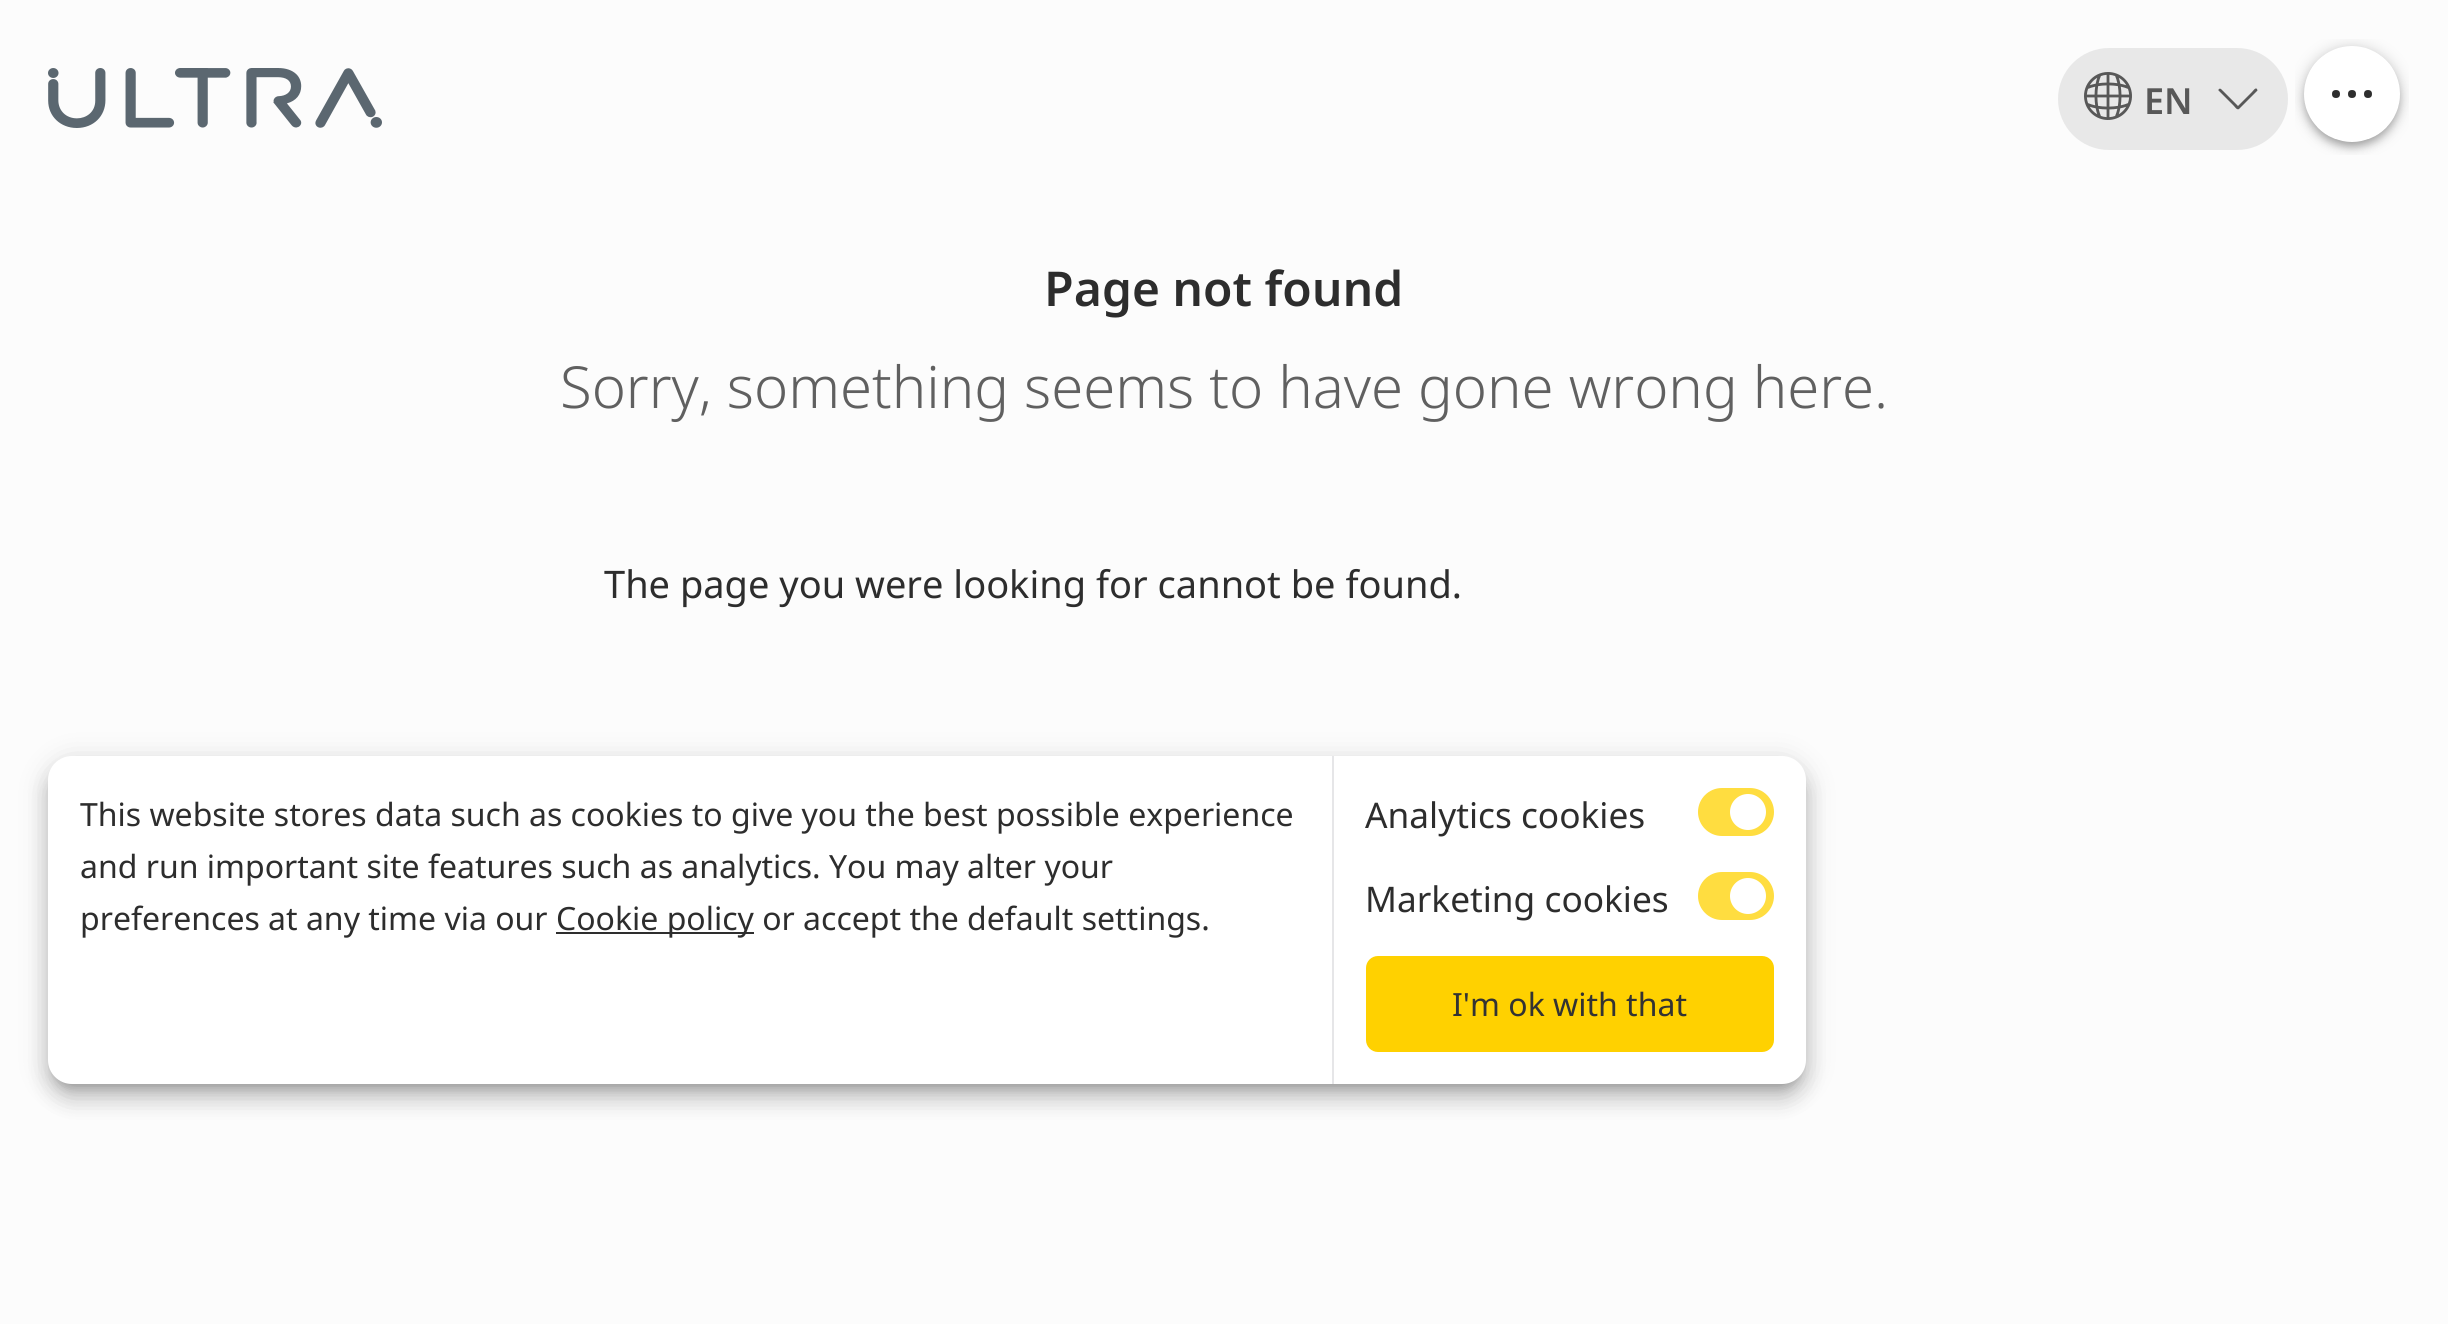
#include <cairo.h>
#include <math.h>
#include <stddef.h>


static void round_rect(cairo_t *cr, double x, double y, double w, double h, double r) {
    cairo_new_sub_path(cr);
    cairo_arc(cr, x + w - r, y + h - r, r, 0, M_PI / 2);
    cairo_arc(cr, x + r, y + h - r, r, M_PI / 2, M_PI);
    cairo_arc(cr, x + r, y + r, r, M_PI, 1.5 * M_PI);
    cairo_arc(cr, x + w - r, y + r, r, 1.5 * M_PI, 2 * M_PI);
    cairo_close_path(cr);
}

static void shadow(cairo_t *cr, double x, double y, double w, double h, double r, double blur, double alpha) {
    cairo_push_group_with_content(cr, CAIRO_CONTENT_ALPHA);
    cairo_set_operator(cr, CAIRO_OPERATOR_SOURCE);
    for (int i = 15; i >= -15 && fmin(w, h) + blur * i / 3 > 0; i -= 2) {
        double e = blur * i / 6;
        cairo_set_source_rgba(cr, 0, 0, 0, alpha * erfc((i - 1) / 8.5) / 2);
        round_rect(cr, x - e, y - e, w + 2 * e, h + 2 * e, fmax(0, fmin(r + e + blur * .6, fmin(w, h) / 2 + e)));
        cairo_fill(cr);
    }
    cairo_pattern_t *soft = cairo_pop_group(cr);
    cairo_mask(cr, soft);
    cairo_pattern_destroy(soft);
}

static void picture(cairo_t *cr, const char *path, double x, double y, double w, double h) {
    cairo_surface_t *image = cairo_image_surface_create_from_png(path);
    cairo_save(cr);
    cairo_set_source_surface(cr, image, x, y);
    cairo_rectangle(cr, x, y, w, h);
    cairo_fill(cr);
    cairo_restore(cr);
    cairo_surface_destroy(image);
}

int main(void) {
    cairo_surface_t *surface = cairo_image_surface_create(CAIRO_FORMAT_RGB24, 2448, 1324);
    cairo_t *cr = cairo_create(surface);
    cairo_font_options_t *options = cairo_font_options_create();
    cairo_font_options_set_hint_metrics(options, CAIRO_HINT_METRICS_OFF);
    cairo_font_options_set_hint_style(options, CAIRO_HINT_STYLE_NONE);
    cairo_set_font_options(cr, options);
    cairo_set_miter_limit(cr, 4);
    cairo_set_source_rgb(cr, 0.988, 0.988, 0.988);
    cairo_paint(cr);
    picture(cr, "img1.png", 48, 68, 334, 60);
    cairo_set_source_rgb(cr, 0.91, 0.91, 0.91);
    round_rect(cr, 2058, 48, 230, 102, 51);
    cairo_fill(cr);
    picture(cr, "img2.png", 2084, 72, 48, 48);
    cairo_select_font_face(cr, "Noto Sans SemiBold", CAIRO_FONT_SLANT_NORMAL, CAIRO_FONT_WEIGHT_NORMAL);
    cairo_set_font_size(cr, 36);
    cairo_set_source_rgb(cr, 0.345, 0.345, 0.345);
    cairo_move_to(cr, 2144, 114);
    cairo_show_text(cr, "EN");
    cairo_new_path(cr);
    cairo_move_to(cr, 2239, 109);
    cairo_curve_to(cr, 2237, 110.5, 2234.5, 106.5, 2234, 106);
    cairo_line_to(cr, 2218.5, 90.5);
    cairo_curve_to(cr, 2218, 89.5, 2219.5, 88, 2221, 89);
    cairo_line_to(cr, 2238, 106);
    cairo_line_to(cr, 2252, 92);
    cairo_curve_to(cr, 2253, 91, 2255.5, 87, 2257, 89);
    cairo_line_to(cr, 2257.5, 90.5);
    cairo_close_path(cr);
    cairo_fill(cr);
    picture(cr, "img3.png", 2295, 39, 114, 116);
    cairo_set_font_size(cr, 48);
    cairo_set_source_rgb(cr, 0.176, 0.176, 0.176);
    cairo_move_to(cr, 1044, 306);
    cairo_show_text(cr, "Page not found");
    cairo_select_font_face(cr, "Noto Sans Light", CAIRO_FONT_SLANT_NORMAL, CAIRO_FONT_WEIGHT_NORMAL);
    cairo_set_font_size(cr, 58);
    cairo_set_source_rgb(cr, 0.376, 0.376, 0.376);
    cairo_move_to(cr, 560, 408);
    cairo_show_text(cr, "Sorry, something seems to have gone wrong here.");
    cairo_select_font_face(cr, "Noto Sans", CAIRO_FONT_SLANT_NORMAL, CAIRO_FONT_WEIGHT_NORMAL);
    cairo_set_font_size(cr, 38);
    cairo_set_source_rgb(cr, 0.176, 0.176, 0.176);
    cairo_move_to(cr, 604, 598);
    cairo_show_text(cr, "The page you were looking for cannot be found.");
    cairo_set_source_rgb(cr, 0, 0, 0);
    shadow(cr, 44, 758, 1766, 336, 28, 14, 0.12);
    shadow(cr, 46, 770, 1762, 332, 26, 10, 0.14);
    shadow(cr, 54, 772, 1746, 316, 18, 5, 0.2);
    cairo_set_source_rgb(cr, 1, 1, 1);
    round_rect(cr, 48, 756, 1758, 328, 24);
    cairo_fill(cr);
    cairo_set_font_size(cr, 32);
    cairo_set_source_rgb(cr, 0.176, 0.176, 0.176);
    cairo_move_to(cr, 80, 826);
    cairo_show_text(cr, "This website stores data such as cookies to give you the best possible experience");
    cairo_move_to(cr, 80, 878);
    cairo_show_text(cr, "and run important site features such as analytics. You may alter your");
    cairo_move_to(cr, 80, 930);
    cairo_show_text(cr, "preferences at any time via our");
    cairo_set_source_rgb(cr, 0.18, 0.18, 0.18);
    cairo_rectangle(cr, 556, 932, 198, 2);
    cairo_fill(cr);
    cairo_set_source_rgb(cr, 0.176, 0.176, 0.176);
    cairo_move_to(cr, 556, 930);
    cairo_show_text(cr, "Cookie policy or accept the default settings.");
    cairo_set_source_rgb(cr, 0.902, 0.902, 0.91);
    cairo_rectangle(cr, 1332, 756, 2, 328);
    cairo_fill(cr);
    cairo_set_font_size(cr, 35.25);
    cairo_set_source_rgb(cr, 0.176, 0.176, 0.176);
    cairo_move_to(cr, 1365, 828);
    cairo_show_text(cr, "Analytics cookies");
    cairo_set_source_rgb(cr, 1, 0.867, 0.251);
    round_rect(cr, 1698, 788, 76, 48, 24);
    cairo_fill(cr);
    cairo_set_source_rgb(cr, 1, 1, 1);
    cairo_arc(cr, 1748, 812, 18, 0, 2 * M_PI);
    cairo_fill(cr);
    cairo_set_source_rgb(cr, 0.176, 0.176, 0.176);
    cairo_move_to(cr, 1365, 912);
    cairo_show_text(cr, "Marketing cookies");
    cairo_set_source_rgb(cr, 1, 0.867, 0.251);
    round_rect(cr, 1698, 872, 76, 48, 24);
    cairo_fill(cr);
    cairo_set_source_rgb(cr, 1, 1, 1);
    cairo_arc(cr, 1748, 896, 18, 0, 2 * M_PI);
    cairo_fill(cr);
    cairo_set_source_rgb(cr, 1, 0.82, 0);
    round_rect(cr, 1366, 956, 408, 96, 12);
    cairo_fill(cr);
    cairo_set_font_size(cr, 32);
    cairo_set_source_rgb(cr, 0.2, 0.2, 0.2);
    cairo_move_to(cr, 1452, 1016);
    cairo_show_text(cr, "I'm ok with that");
    cairo_surface_write_to_png(surface, "page.png");
    cairo_font_options_destroy(options);
    cairo_destroy(cr);
    cairo_surface_destroy(surface);
    return 0;
}
